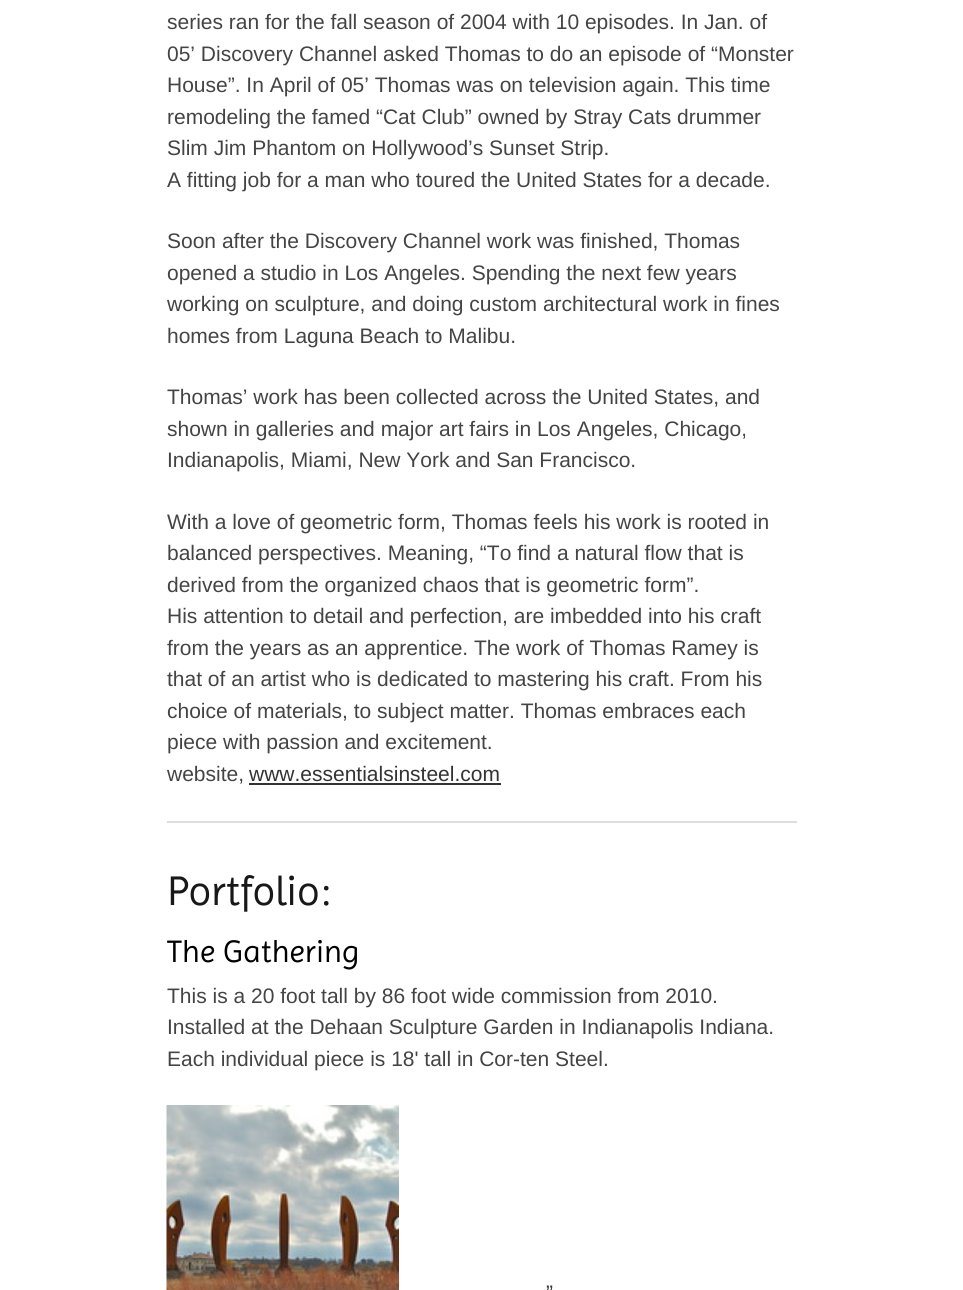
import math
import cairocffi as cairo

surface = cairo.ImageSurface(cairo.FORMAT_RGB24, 963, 1290)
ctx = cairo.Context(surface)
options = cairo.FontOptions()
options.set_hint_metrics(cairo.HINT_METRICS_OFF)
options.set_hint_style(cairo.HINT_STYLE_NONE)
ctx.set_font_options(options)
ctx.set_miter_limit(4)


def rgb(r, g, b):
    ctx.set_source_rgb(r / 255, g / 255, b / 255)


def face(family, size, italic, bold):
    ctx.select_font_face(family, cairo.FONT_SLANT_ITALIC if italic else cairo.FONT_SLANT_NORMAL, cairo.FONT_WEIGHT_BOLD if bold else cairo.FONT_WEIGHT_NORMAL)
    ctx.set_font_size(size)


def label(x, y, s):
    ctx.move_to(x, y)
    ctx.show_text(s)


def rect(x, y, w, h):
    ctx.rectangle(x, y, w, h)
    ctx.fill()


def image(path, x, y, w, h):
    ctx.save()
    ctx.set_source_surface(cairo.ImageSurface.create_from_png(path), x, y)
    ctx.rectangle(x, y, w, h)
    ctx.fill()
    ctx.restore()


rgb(255, 255, 255)
ctx.paint()
face('Liberation Sans', 21, 0, 0)
rgb(68, 68, 68)
label(167, 29, 'series ran for the fall season of 2004 with 10 episodes. In Jan. of')
label(167, 61, '05’ Discovery Channel asked Thomas to do an episode of “Monster')
label(167, 92, 'House”. In April of 05’ Thomas was on television again. This time')
label(167, 124, 'remodeling the famed “Cat Club” owned by Stray Cats drummer')
label(167, 155, 'Slim Jim Phantom on Hollywood’s Sunset Strip.')
label(167, 187, 'A fitting job for a man who toured the United States for a decade.')
label(167, 248, 'Soon after the Discovery Channel work was finished, Thomas')
label(167, 280, 'opened a studio in Los Angeles. Spending the next few years')
label(167, 311, 'working on sculpture, and doing custom architectural work in fines')
label(167, 343, 'homes from Laguna Beach to Malibu.')
label(167, 404, 'Thomas’ work has been collected across the United States, and')
label(167, 436, 'shown in galleries and major art fairs in Los Angeles, Chicago,')
label(167, 467, 'Indianapolis, Miami, New York and San Francisco.')
label(167, 529, 'With a love of geometric form, Thomas feels his work is rooted in')
label(167, 560, 'balanced perspectives. Meaning, “To find a natural flow that is')
label(167, 592, 'derived from the organized chaos that is geometric form”.')
label(167, 623, 'His attention to detail and perfection, are imbedded into his craft')
label(167, 655, 'from the years as an apprentice. The work of Thomas Ramey is')
label(167, 686, 'that of an artist who is dedicated to mastering his craft. From his')
label(167, 718, 'choice of materials, to subject matter. Thomas embraces each')
label(167, 749, 'piece with passion and excitement.')
label(167, 781, 'website,')
rgb(51, 51, 51)
label(249, 781, 'www.essentialsinsteel.com')
rect(249, 783, 252, 2)
rgb(221, 221, 221)
rect(167, 821, 630, 2)
face('Imprima', 42, 0, 0)
rgb(24, 24, 24)
label(167, 905, 'Portfolio:')
face('Imprima', 31.5, 0, 0)
rgb(0, 0, 0)
label(167, 962, 'The Gathering')
face('Liberation Sans', 21, 0, 0)
rgb(68, 68, 68)
label(167, 1003, 'This is a 20 foot tall by 86 foot wide commission from 2010.')
label(167, 1034, 'Installed at the Dehaan Sculpture Garden in Indianapolis Indiana.')
label(167, 1066, 'Each individual piece is 18\' tall in Cor-ten Steel.')
image('image0.png', 166, 1105, 233, 185)
rgb(51, 51, 51)
label(546, 1300, '”')
surface.write_to_png('render.png')
